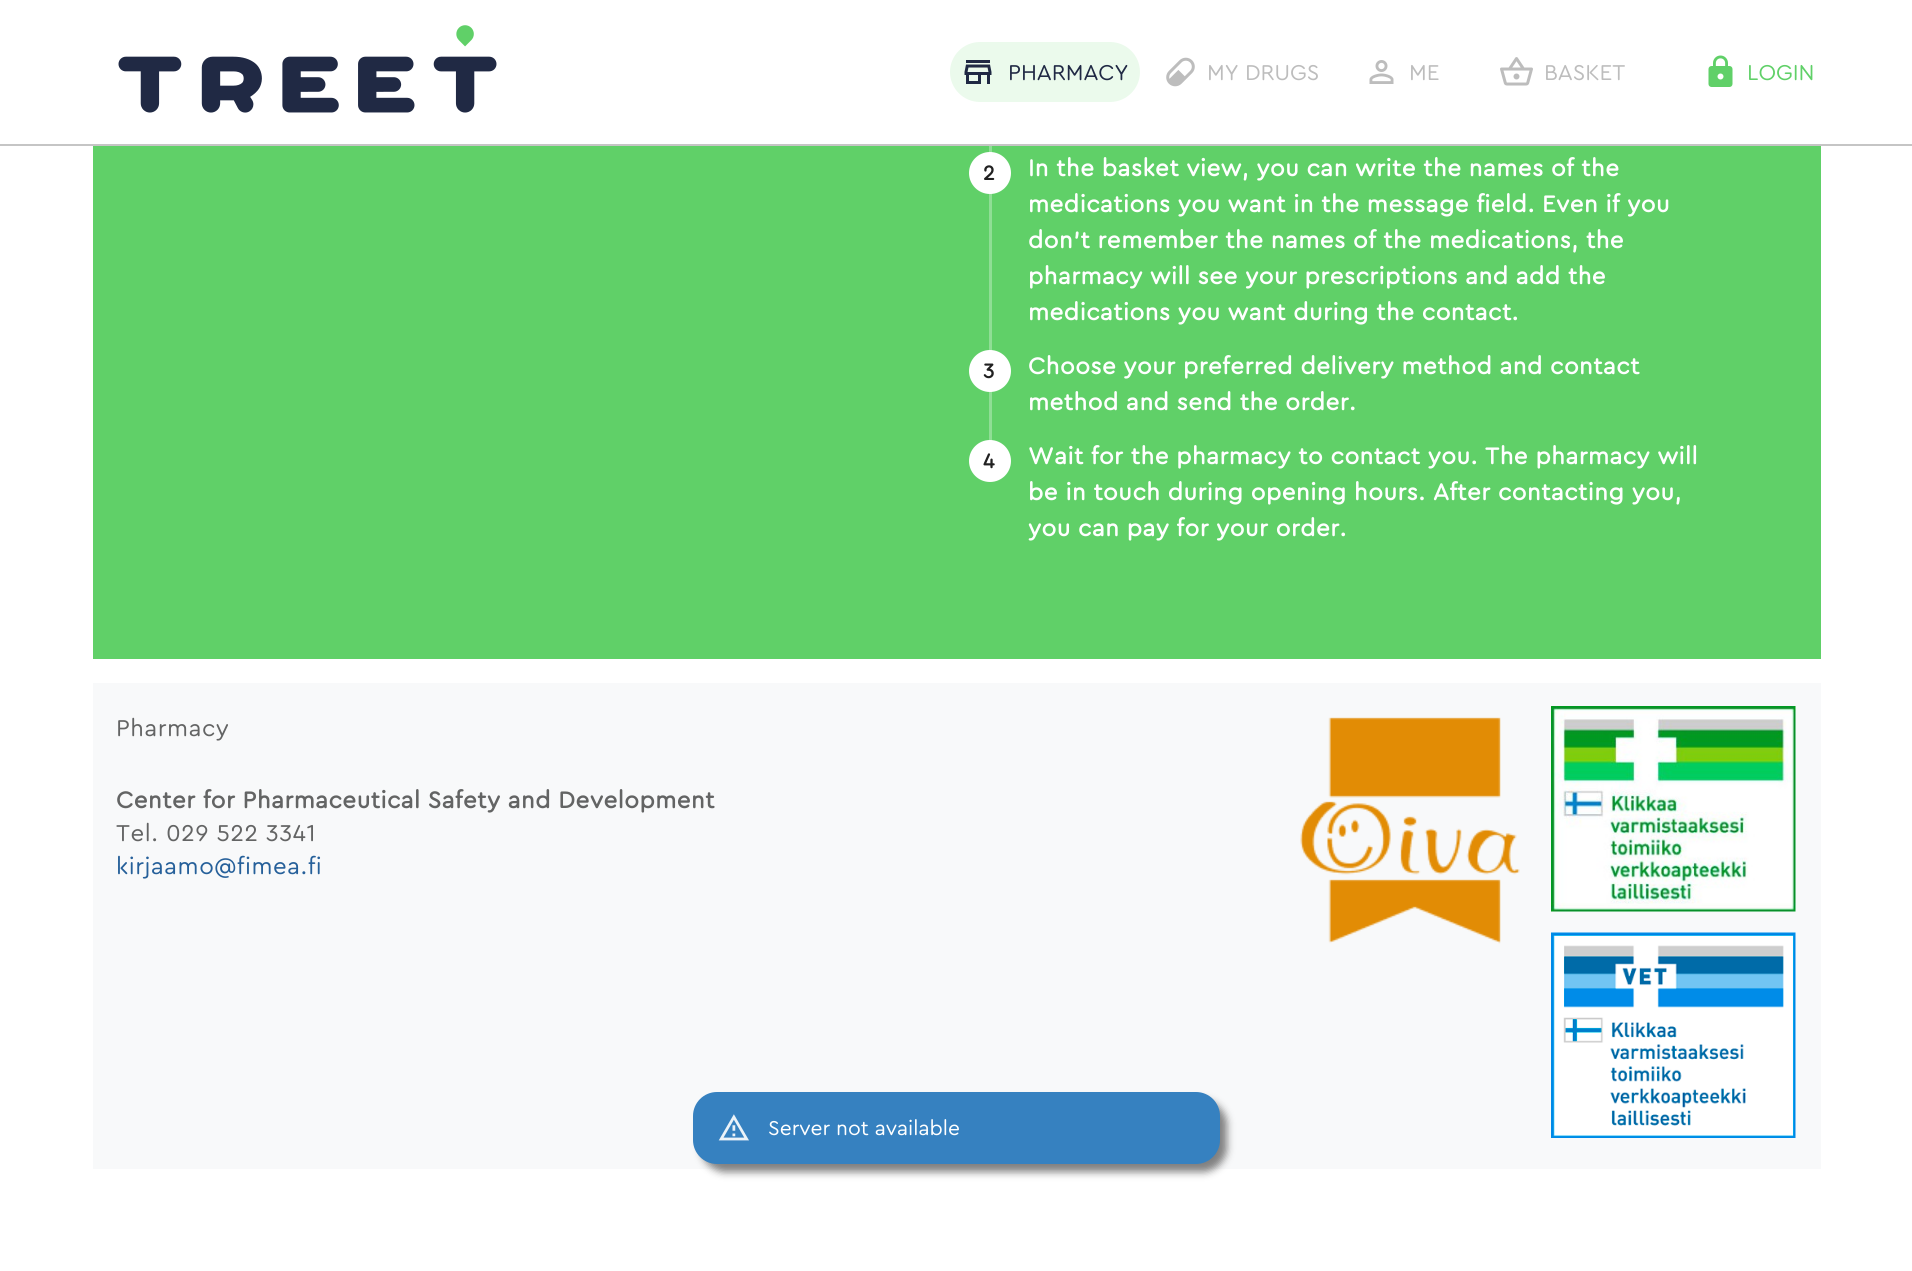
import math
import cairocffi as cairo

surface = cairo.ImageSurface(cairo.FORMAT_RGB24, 1912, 1271)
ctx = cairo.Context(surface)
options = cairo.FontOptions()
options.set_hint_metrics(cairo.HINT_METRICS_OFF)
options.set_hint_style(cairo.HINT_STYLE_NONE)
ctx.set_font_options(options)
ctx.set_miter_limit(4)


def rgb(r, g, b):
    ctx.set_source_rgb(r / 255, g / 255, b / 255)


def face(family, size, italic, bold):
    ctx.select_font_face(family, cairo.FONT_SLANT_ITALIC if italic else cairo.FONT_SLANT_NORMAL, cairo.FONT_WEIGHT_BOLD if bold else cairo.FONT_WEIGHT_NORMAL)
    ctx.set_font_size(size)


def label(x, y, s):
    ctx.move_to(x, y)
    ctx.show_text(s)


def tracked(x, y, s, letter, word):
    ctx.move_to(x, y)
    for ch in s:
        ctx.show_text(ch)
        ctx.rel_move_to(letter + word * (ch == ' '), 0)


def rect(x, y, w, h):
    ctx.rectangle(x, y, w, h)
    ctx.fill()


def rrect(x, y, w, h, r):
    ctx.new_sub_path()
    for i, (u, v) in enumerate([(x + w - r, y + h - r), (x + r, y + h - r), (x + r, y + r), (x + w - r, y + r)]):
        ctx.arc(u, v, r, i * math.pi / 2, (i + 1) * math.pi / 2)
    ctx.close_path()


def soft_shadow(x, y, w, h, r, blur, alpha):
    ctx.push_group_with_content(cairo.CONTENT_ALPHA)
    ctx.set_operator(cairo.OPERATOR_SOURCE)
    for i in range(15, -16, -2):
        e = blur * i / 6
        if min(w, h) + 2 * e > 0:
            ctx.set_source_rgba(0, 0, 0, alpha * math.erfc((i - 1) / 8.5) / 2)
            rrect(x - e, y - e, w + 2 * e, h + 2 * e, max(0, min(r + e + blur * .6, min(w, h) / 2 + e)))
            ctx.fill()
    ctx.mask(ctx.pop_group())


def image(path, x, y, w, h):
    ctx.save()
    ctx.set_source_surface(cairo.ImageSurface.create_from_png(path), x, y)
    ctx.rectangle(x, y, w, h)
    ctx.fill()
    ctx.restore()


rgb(255, 255, 255)
ctx.paint()
image('image0.png', 118, 25, 379, 88)
rgb(235, 250, 236)
rrect(950, 42, 190, 60, 30)
ctx.fill()
image('image1.png', 964, 60, 28, 24)
face('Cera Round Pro', 22.5, 0, 0)
rgb(32, 41, 68)
label(1008, 80, 'PHARMACY')
image('image2.png', 1166, 57, 29, 30)
rgb(189, 189, 189)
label(1207, 80, 'MY DRUGS')
image('image3.png', 1369, 60, 25, 24)
label(1409, 80, 'ME')
image('image4.png', 1500, 57, 33, 29)
label(1544, 80, 'BASKET')
image('image5.png', 1708, 55, 25, 32)
rgb(96, 208, 104)
label(1747, 80, 'LOGIN')
rgb(197, 197, 197)
rect(0, 144, 1912, 2)
rgb(96, 208, 104)
rect(93, 146, 1728, 513)
ctx.set_source_rgba(1, 1, 1, 0.3)
rect(989, 146, 3, 7)
rgb(255, 255, 255)
ctx.new_path()
ctx.arc(990, 173, 21, 0, 2 * math.pi)
ctx.fill()
face('Cera Round Pro', 21, 0, 1)
rgb(33, 33, 33)
tracked(983, 180, '2', 0.6, 0)
face('Cera Round Pro', 24, 0, 1)
rgb(255, 255, 255)
tracked(1028, 176, 'In the basket view, you can write the names of the', 0.6, 0)
ctx.set_source_rgba(1, 1, 1, 0.3)
rect(989, 192, 3, 159)
rgb(255, 255, 255)
tracked(1028, 212, 'medications you want in the message field. Even if you', 0.6, 0)
tracked(1028, 248, 'don\'t remember the names of the medications, the', 0.6, 0)
tracked(1028, 284, 'pharmacy will see your prescriptions and add the', 0.6, 0)
tracked(1028, 320, 'medications you want during the contact.', 0.6, 0)
ctx.new_path()
ctx.arc(990, 371, 21, 0, 2 * math.pi)
ctx.fill()
face('Cera Round Pro', 21, 0, 1)
rgb(33, 33, 33)
tracked(983, 378, '3', 0.6, 0)
face('Cera Round Pro', 24, 0, 1)
rgb(255, 255, 255)
tracked(1028, 374, 'Choose your preferred delivery method and contact', 0.6, 0)
ctx.set_source_rgba(1, 1, 1, 0.3)
rect(989, 390, 3, 51)
rgb(255, 255, 255)
tracked(1028, 410, 'method and send the order.', 0.6, 0)
ctx.new_path()
ctx.arc(990, 461, 21, 0, 2 * math.pi)
ctx.fill()
face('Cera Round Pro', 21, 0, 1)
rgb(33, 33, 33)
tracked(983, 468, '4', 0.6, 0)
face('Cera Round Pro', 24, 0, 1)
rgb(255, 255, 255)
tracked(1028, 464, 'Wait for the pharmacy to contact you. The pharmacy will', 0.6, 0)
tracked(1028, 500, 'be in touch during opening hours. After contacting you,', 0.6, 0)
tracked(1028, 536, 'you can pay for your order.', 0.6, 0)
rgb(248, 249, 250)
rect(93, 683, 1728, 486)
face('Cera Round Pro', 24, 0, 0)
rgb(99, 100, 100)
tracked(116, 736, 'Pharmacy', 0.6, 0)
face('Cera Round Pro', 24, 0, 1)
tracked(116, 808, 'Center for Pharmaceutical Safety and Development', 0.6, 0)
face('Cera Round Pro', 24, 0, 0)
tracked(116, 841, 'Tel. 029 522 3341', 0.6, 0)
rgb(38, 96, 154)
tracked(116, 874, 'kirjaamo@fimea.fi', 0.6, 0)
image('image6.png', 1300, 717, 220, 227)
image('image7.png', 1551, 706, 245, 206)
image('image8.png', 1551, 932, 245, 206)
rgb(128, 128, 128)
soft_shadow(701, 1100, 526, 72, 24, 4, 1)
rgb(54, 129, 192)
rrect(693, 1092, 527, 72, 24)
ctx.fill()
image('image9.png', 718, 1114, 31, 27)
face('Cera Round Pro', 21, 0, 0)
rgb(255, 255, 255)
label(768, 1135, 'Server not available')
surface.write_to_png('render.png')
